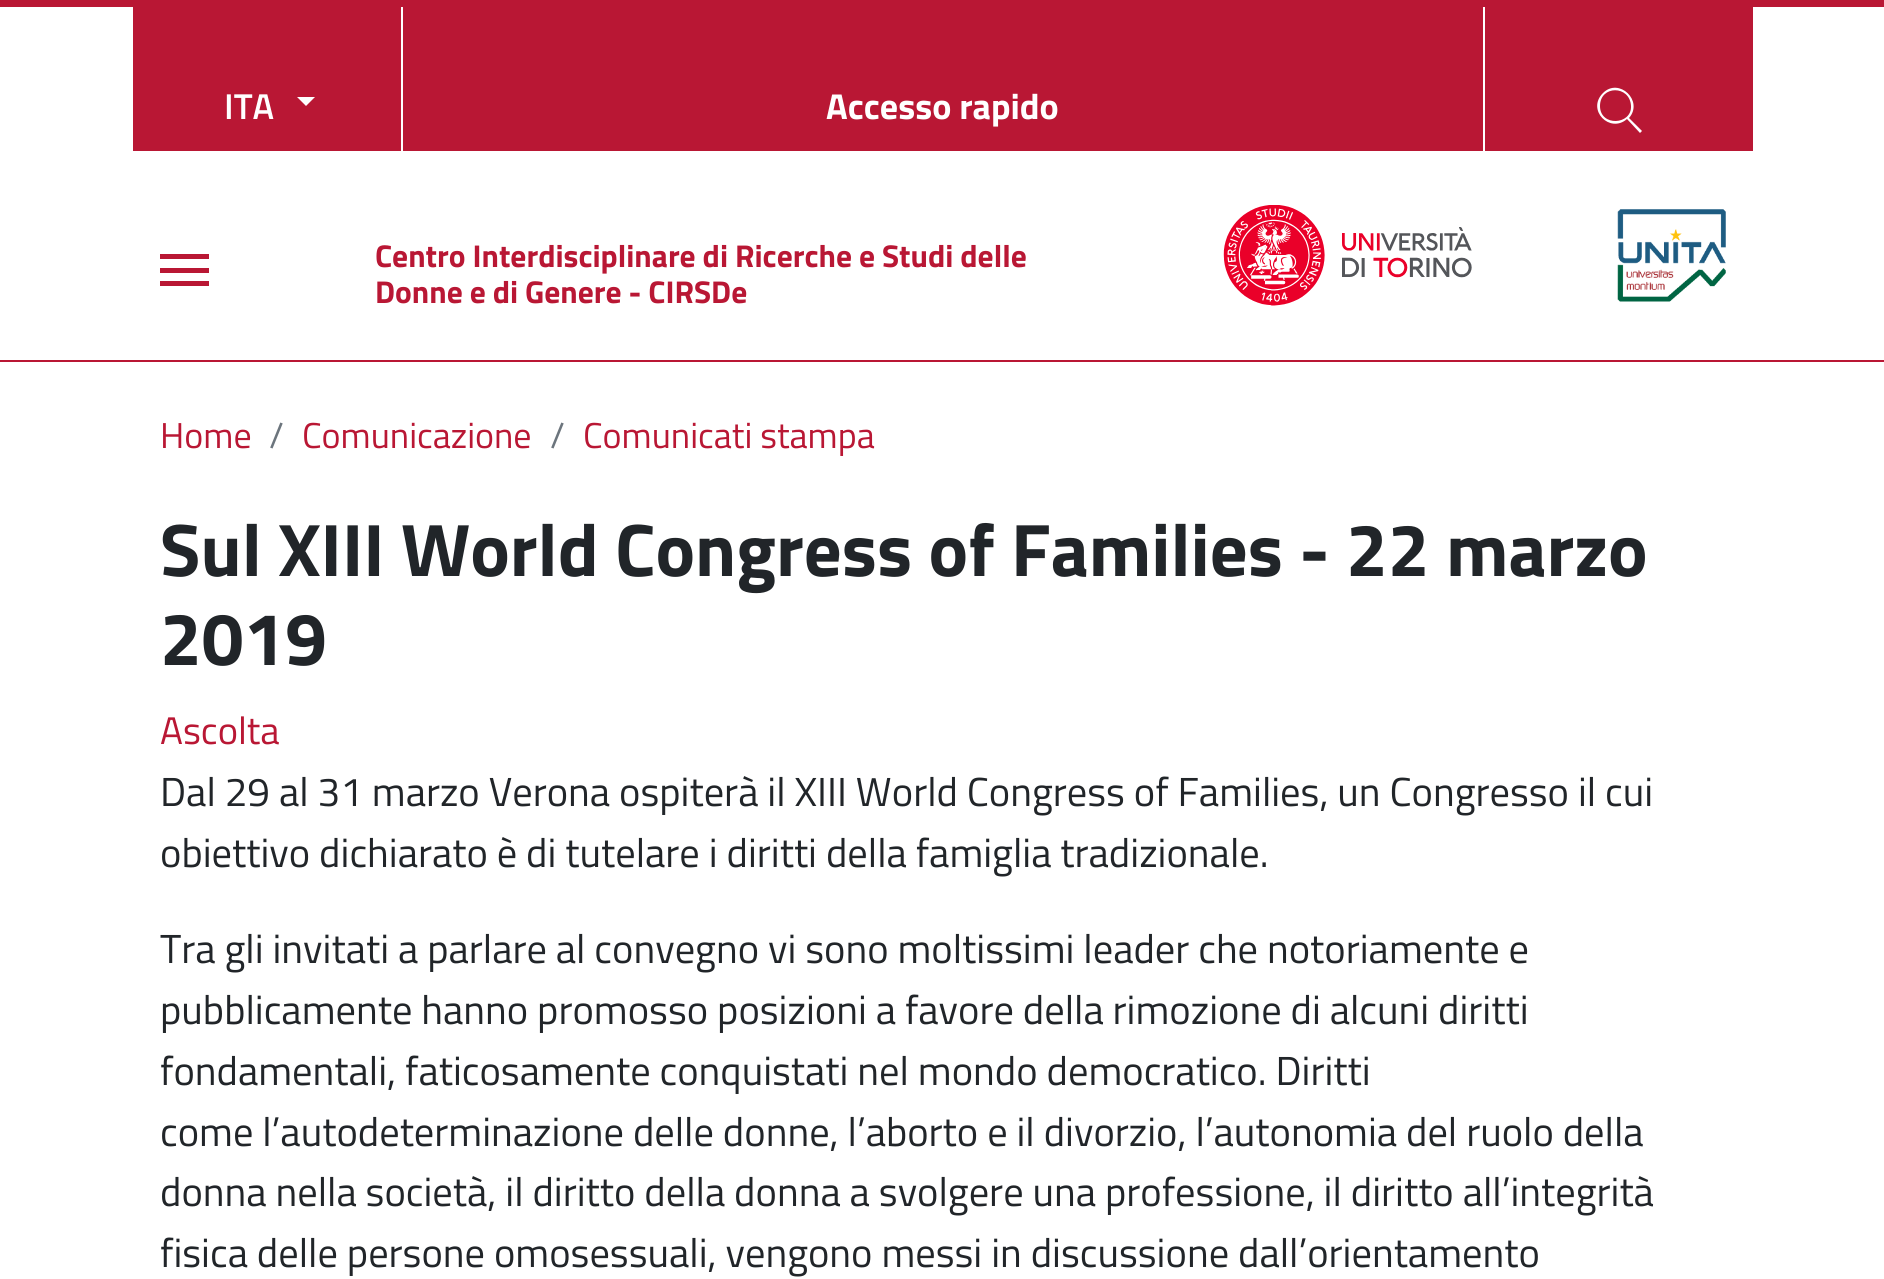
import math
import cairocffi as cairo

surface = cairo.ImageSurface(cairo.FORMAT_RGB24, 1884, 1279)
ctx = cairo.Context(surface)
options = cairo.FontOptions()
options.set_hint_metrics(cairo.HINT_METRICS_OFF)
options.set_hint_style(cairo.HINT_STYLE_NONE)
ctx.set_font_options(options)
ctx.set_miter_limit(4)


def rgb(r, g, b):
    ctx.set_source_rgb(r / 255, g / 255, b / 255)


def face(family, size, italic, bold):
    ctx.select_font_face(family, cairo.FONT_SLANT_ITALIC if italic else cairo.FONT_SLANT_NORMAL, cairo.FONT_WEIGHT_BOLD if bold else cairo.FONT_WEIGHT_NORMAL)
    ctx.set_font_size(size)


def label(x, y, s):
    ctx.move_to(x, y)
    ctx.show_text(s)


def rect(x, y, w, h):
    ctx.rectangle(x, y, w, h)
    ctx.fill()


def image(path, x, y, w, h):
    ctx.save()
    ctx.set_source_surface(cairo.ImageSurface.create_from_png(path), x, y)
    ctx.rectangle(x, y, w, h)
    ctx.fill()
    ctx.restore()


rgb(255, 255, 255)
ctx.paint()
rgb(185, 23, 52)
rect(0, 0, 1884, 7)
rect(133, 7, 1620, 144)
rgb(255, 255, 255)
rect(401, 7, 2, 144)
face('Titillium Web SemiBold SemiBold', 36, 0, 0)
label(224, 119, 'ITA')
ctx.new_path()
ctx.move_to(297, 97)
ctx.line_to(315, 97)
ctx.line_to(306, 106)
ctx.close_path()
ctx.fill()
face('Titillium Web', 36, 0, 1)
label(826, 119, 'Accesso rapido')
rect(1483, 7, 2, 144)
ctx.set_fill_rule(cairo.FILL_RULE_EVEN_ODD)
ctx.new_path()
ctx.move_to(1629, 118)
ctx.line_to(1642, 131)
ctx.line_to(1640, 133)
ctx.line_to(1627, 119)
ctx.curve_to(1610, 134, 1586, 110, 1603, 93)
ctx.curve_to(1619, 77, 1644, 101, 1629, 118)
ctx.close_path()
ctx.move_to(1600, 106)
ctx.curve_to(1600, 127, 1632, 125, 1631, 106)
ctx.curve_to(1630, 85, 1600, 85, 1600, 106)
ctx.close_path()
ctx.fill()
rgb(185, 23, 52)
rect(0, 360, 1884, 2)
rect(160, 268, 49, 5)
rect(160, 254, 49, 5)
rect(160, 281, 49, 5)
face('Titillium Web', 31.5, 0, 1)
label(375, 267, 'Centro Interdisciplinare di Ricerche e Studi delle')
label(375, 303, 'Donne e di Genere - CIRSDe')
image('image0.png', 1223, 205, 249, 101)
image('image1.png', 1617, 209, 109, 93)
face('Titillium Web', 36, 0, 0)
label(160, 448, 'Home')
rgb(108, 117, 125)
label(269, 448, '/')
rgb(185, 23, 52)
label(302, 448, 'Comunicazione')
rgb(108, 117, 125)
label(550, 448, '/')
rgb(185, 23, 52)
label(583, 448, 'Comunicati stampa')
face('Titillium Web', 74.5, 0, 1)
rgb(33, 37, 41)
label(160, 576, 'Sul XIII World Congress of Families - 22 marzo')
label(160, 665, '2019')
face('Titillium Web', 38.5, 0, 0)
rgb(185, 23, 52)
label(160, 744, 'Ascolta')
face('Titillium Web', 40.5, 0, 0)
rgb(33, 37, 41)
label(160, 806, 'Dal 29 al 31 marzo Verona ospiterà il XIII World Congress of Families, un Congresso il cui')
label(160, 867, 'obiettivo dichiarato è di tutelare i diritti della famiglia tradizionale.')
label(160, 963, 'Tra gli invitati a parlare al convegno vi sono moltissimi leader che notoriamente e')
label(160, 1024, 'pubblicamente hanno promosso posizioni a favore della rimozione di alcuni diritti')
label(160, 1085, 'fondamentali, faticosamente conquistati nel mondo democratico. Diritti')
label(160, 1146, 'come l’autodeterminazione delle donne, l’aborto e il divorzio, l’autonomia del ruolo della')
label(160, 1206, 'donna nella società, il diritto della donna a svolgere una professione, il diritto all’integrità')
label(160, 1267, 'fisica delle persone omosessuali, vengono messi in discussione dall’orientamento')
surface.write_to_png('render.png')
